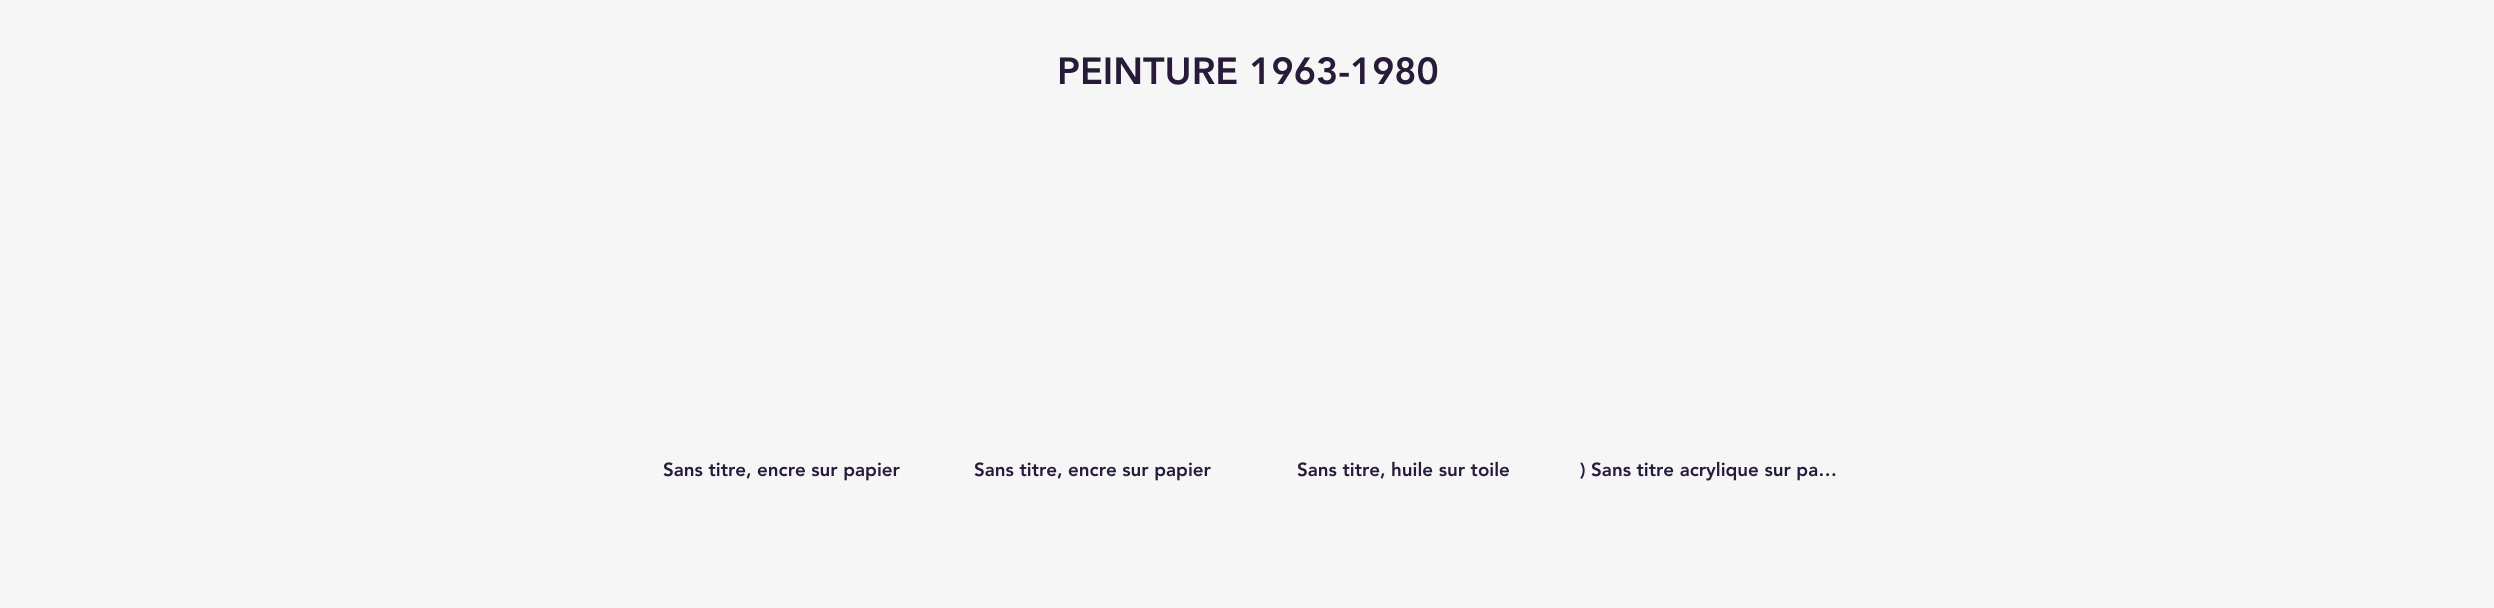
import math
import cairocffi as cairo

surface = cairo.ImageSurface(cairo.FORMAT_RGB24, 2494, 608)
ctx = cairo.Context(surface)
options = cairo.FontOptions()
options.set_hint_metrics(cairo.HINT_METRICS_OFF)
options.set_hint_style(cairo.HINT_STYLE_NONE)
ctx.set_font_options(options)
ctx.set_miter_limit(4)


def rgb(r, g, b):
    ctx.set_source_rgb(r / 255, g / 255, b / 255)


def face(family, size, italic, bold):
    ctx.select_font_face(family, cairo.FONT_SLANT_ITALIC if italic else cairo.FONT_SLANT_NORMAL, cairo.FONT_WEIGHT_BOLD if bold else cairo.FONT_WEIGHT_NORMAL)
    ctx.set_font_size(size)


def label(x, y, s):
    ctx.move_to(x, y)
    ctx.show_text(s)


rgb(246, 246, 246)
ctx.paint()
face('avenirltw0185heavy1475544 Black', 37.5, 0, 0)
rgb(40, 26, 57)
label(1057, 84, 'PEINTURE 1963-1980')
face('avenirltw0185heavy1475544 Black', 18.75, 0, 0)
label(663, 476, 'Sans titre, encre sur papier')
label(974, 476, 'Sans titre, encre sur papier')
label(1297, 476, 'Sans titre, huile sur toile')
label(1580, 476, ') Sans titre acrylique sur pa…')
surface.write_to_png('render.png')
